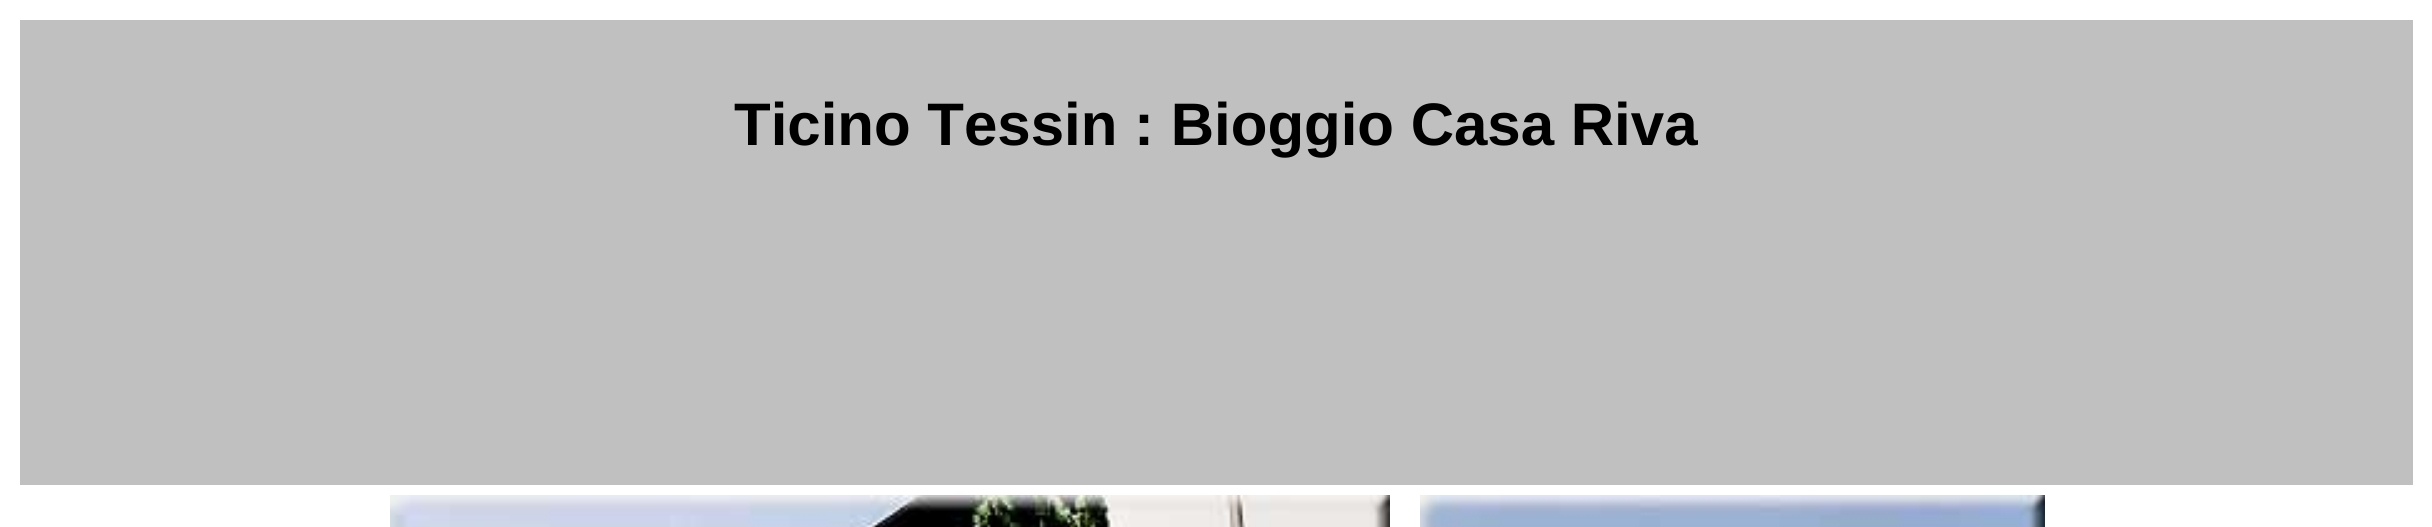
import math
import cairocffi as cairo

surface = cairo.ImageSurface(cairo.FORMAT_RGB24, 2432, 527)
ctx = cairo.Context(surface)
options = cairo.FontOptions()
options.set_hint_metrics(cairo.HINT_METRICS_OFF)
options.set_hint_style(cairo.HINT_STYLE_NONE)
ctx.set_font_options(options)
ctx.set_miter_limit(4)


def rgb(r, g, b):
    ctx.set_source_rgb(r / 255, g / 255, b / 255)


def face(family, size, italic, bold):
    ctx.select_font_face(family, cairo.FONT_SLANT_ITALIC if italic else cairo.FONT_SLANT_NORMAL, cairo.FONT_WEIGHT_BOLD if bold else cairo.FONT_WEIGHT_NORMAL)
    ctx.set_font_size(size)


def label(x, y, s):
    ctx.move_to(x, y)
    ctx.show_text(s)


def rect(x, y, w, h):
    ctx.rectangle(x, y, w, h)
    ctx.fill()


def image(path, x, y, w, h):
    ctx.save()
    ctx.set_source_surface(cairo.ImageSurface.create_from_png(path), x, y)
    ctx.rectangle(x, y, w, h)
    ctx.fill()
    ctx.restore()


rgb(255, 255, 255)
ctx.paint()
rgb(192, 192, 192)
rect(20, 20, 2393, 465)
face('Liberation Sans', 60, 0, 1)
rgb(0, 0, 0)
label(734, 145, 'Ticino Tessin : Bioggio Casa Riva')
image('image0.png', 390, 495, 1000, 32)
image('image1.png', 1420, 495, 625, 32)
surface.write_to_png('render.png')
